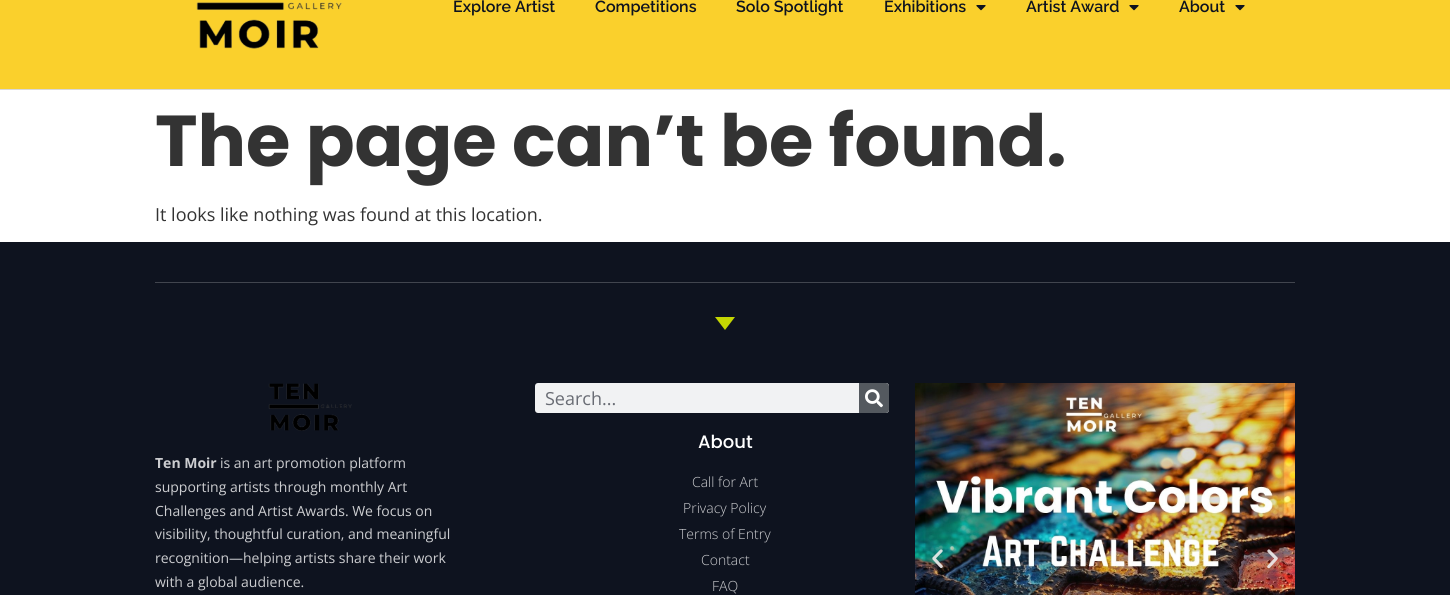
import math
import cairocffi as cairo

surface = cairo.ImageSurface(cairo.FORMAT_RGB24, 1450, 595)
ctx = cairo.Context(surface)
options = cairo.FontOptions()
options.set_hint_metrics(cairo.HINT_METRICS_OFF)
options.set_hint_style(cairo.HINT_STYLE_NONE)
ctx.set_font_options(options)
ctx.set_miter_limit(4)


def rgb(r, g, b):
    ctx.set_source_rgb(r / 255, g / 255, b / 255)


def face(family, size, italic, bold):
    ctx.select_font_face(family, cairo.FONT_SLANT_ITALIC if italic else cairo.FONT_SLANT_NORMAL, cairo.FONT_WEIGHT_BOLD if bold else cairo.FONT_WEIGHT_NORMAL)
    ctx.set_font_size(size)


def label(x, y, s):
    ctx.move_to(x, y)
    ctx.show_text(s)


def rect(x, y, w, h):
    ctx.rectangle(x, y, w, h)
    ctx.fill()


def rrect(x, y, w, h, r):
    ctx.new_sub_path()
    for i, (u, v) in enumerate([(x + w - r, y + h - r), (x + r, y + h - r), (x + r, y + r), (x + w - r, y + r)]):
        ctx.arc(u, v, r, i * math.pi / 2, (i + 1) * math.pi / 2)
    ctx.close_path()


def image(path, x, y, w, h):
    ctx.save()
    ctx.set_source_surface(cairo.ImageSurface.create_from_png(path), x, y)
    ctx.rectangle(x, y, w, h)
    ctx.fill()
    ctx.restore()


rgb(255, 255, 255)
ctx.paint()
rgb(250, 208, 44)
rect(0, 0, 1450, 89)
rgb(216, 216, 216)
rect(0, 89, 1450, 1)
image('image0.png', 196, 2, 146, 47)
face('Raleway SemiBold', 16, 0, 0)
rgb(14, 19, 31)
label(453, 12, 'Explore Artist')
label(595, 12, 'Competitions')
label(736, 12, 'Solo Spotlight')
label(884, 12, 'Exhibitions')
image('image1.png', 976, 5, 10, 6)
label(1026, 12, 'Artist Award')
image('image1.png', 1129, 5, 10, 6)
label(1179, 12, 'About')
image('image1.png', 1235, 5, 10, 6)
face('Poppins', 72, 0, 1)
rgb(51, 51, 51)
label(155, 166, 'The page can’t be found.')
face('Open Sans', 18, 0, 0)
label(155, 221, 'It looks like nothing was found at this location.')
rgb(14, 19, 31)
rect(0, 242, 1450, 353)
rgb(65, 69, 78)
rect(155, 282, 1140, 1)
rgb(196, 214, 2)
ctx.new_path()
ctx.move_to(725, 330)
ctx.line_to(715, 317)
ctx.line_to(735, 317)
ctx.close_path()
ctx.fill()
image('image2.png', 268, 383, 84, 48)
face('Open Sans', 14, 0, 1)
rgb(204, 205, 208)
label(155, 468, 'Ten Moir')
face('Open Sans', 14, 0, 0)
label(220, 468, 'is an art promotion platform')
label(155, 492, 'supporting artists through monthly Art')
label(155, 516, 'Challenges and Artist Awards. We focus on')
label(155, 539, 'visibility, thoughtful curation, and meaningful')
label(155, 563, 'recognition—helping artists share their work')
label(155, 587, 'with a global audience.')
rgb(241, 242, 243)
rrect(535, 383, 354, 30, 3)
ctx.fill()
face('Open Sans', 18, 0, 0)
rgb(105, 108, 116)
label(545, 405, 'Search...')
rgb(84, 89, 95)
ctx.new_path()
ctx.move_to(859, 383)
ctx.line_to(886, 383)
ctx.curve_to(887.5, 383, 889, 384.5, 889, 386)
ctx.line_to(889, 410)
ctx.curve_to(889, 411.5, 887.5, 413, 886, 413)
ctx.line_to(859, 413)
ctx.close_path()
ctx.fill()
image('image3.png', 865, 389, 18, 19)
face('Poppins Medium', 18, 0, 0)
rgb(255, 255, 255)
label(698, 448, 'About')
face('Open Sans Light', 14, 0, 0)
rgb(204, 205, 208)
label(692, 487, 'Call for Art')
label(683, 513, 'Privacy Policy')
label(679, 539, 'Terms of Entry')
label(701, 565, 'Contact')
label(712, 591, 'FAQ')
image('image4.png', 915, 383, 380, 212)
image('image5.png', 932, 549, 11, 20)
image('image6.png', 1267, 549, 11, 20)
surface.write_to_png('render.png')
